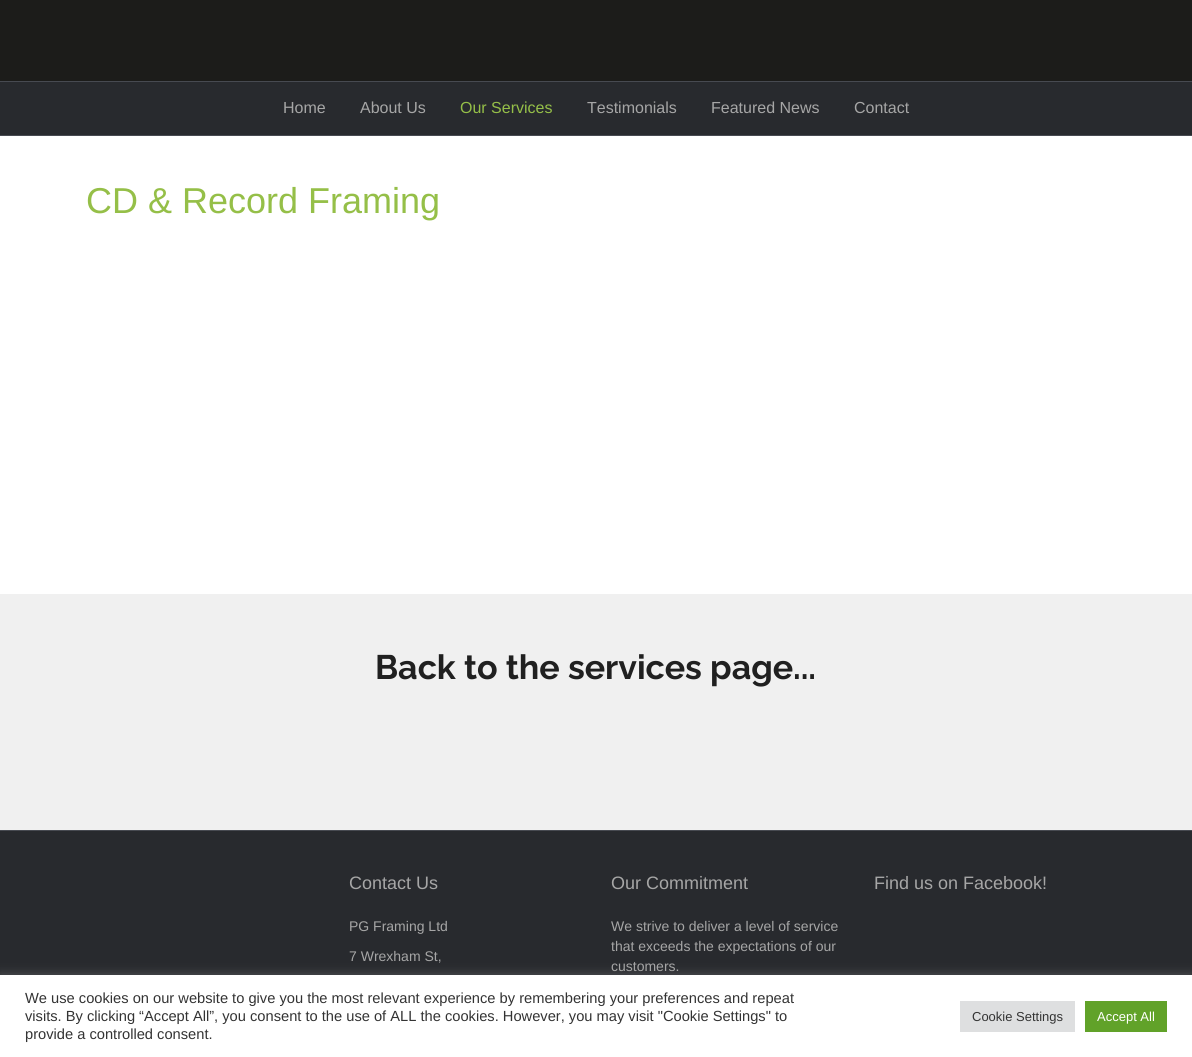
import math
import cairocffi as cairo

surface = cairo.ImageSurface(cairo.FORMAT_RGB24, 1192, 1057)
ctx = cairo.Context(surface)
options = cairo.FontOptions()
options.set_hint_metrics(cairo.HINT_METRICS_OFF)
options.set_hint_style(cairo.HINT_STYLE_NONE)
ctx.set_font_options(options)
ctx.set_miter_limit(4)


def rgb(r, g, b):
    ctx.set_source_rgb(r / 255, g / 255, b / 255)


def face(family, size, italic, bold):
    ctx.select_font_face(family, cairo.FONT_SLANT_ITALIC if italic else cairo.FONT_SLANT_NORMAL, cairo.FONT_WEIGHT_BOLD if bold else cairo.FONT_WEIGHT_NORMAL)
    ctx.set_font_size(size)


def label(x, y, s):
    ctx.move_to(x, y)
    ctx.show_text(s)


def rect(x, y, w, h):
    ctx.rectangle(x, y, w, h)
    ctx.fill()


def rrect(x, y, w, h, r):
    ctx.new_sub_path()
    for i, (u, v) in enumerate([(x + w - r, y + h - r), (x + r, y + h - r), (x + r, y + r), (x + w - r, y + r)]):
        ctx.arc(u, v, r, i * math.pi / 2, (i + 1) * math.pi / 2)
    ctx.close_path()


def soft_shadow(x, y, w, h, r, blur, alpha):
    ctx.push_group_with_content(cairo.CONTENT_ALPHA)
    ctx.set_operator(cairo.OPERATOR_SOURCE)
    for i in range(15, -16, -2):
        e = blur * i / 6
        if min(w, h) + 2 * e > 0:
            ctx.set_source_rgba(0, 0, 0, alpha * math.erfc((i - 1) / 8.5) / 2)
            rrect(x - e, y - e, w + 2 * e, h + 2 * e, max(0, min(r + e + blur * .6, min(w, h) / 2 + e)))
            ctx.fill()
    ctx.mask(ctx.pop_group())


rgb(40, 42, 46)
ctx.paint()
rgb(28, 28, 26)
rect(0, 0, 1192, 81)
rgb(71, 74, 81)
rect(0, 81, 1192, 1)
rect(0, 135, 1192, 1)
face('Liberation Sans', 16, 0, 0)
rgb(166, 166, 166)
label(283, 113, 'Home')
label(360, 113, 'About Us')
rgb(149, 191, 72)
label(460, 113, 'Our Services')
rgb(166, 166, 166)
label(587, 113, 'Testimonials')
label(711, 113, 'Featured News')
label(854, 113, 'Contact')
rgb(255, 255, 255)
rect(0, 136, 1192, 458)
face('Liberation Sans', 36, 0, 0)
rgb(149, 191, 72)
label(86, 213, 'CD & Record Framing')
rgb(240, 240, 240)
rect(0, 594, 1192, 236)
face('Raleway Thin', 34, 0, 0)
rgb(32, 32, 32)
label(375, 679, 'Back to the services page...')
rgb(71, 74, 81)
rect(0, 830, 1192, 1)
face('Liberation Sans', 18, 0, 0)
rgb(166, 166, 166)
label(349, 889, 'Contact Us')
face('Liberation Sans', 14, 0, 0)
label(349, 931, 'PG Framing Ltd')
label(349, 961, '7 Wrexham St,')
face('Liberation Sans', 18, 0, 0)
label(611, 889, 'Our Commitment')
face('Liberation Sans', 14, 0, 0)
label(611, 931, 'We strive to deliver a level of service')
label(611, 951, 'that exceeds the expectations of our')
label(611, 971, 'customers.')
face('Liberation Sans', 18, 0, 0)
label(874, 889, 'Find us on Facebook!')
rgb(172, 171, 171)
soft_shadow(0, 974, 1192, 82, 0, 5, 0.3)
rgb(255, 255, 255)
rect(0, 975, 1192, 82)
face('Liberation Sans', 14.67, 0, 0)
rgb(51, 51, 51)
label(25, 1003, 'We use cookies on our website to give you the most relevant experience by remembering your preferences and repeat')
label(25, 1021, 'visits. By clicking “Accept All”, you consent to the use of ALL the cookies. However, you may visit "Cookie Settings" to')
label(25, 1039, 'provide a controlled consent.')
rgb(222, 223, 224)
rect(960, 1001, 115, 31)
face('Liberation Sans', 13, 0, 0)
rgb(51, 51, 51)
label(972, 1021, 'Cookie Settings')
rgb(97, 162, 41)
rect(1085, 1001, 82, 31)
rgb(255, 255, 255)
label(1097, 1021, 'Accept All')
surface.write_to_png('render.png')
